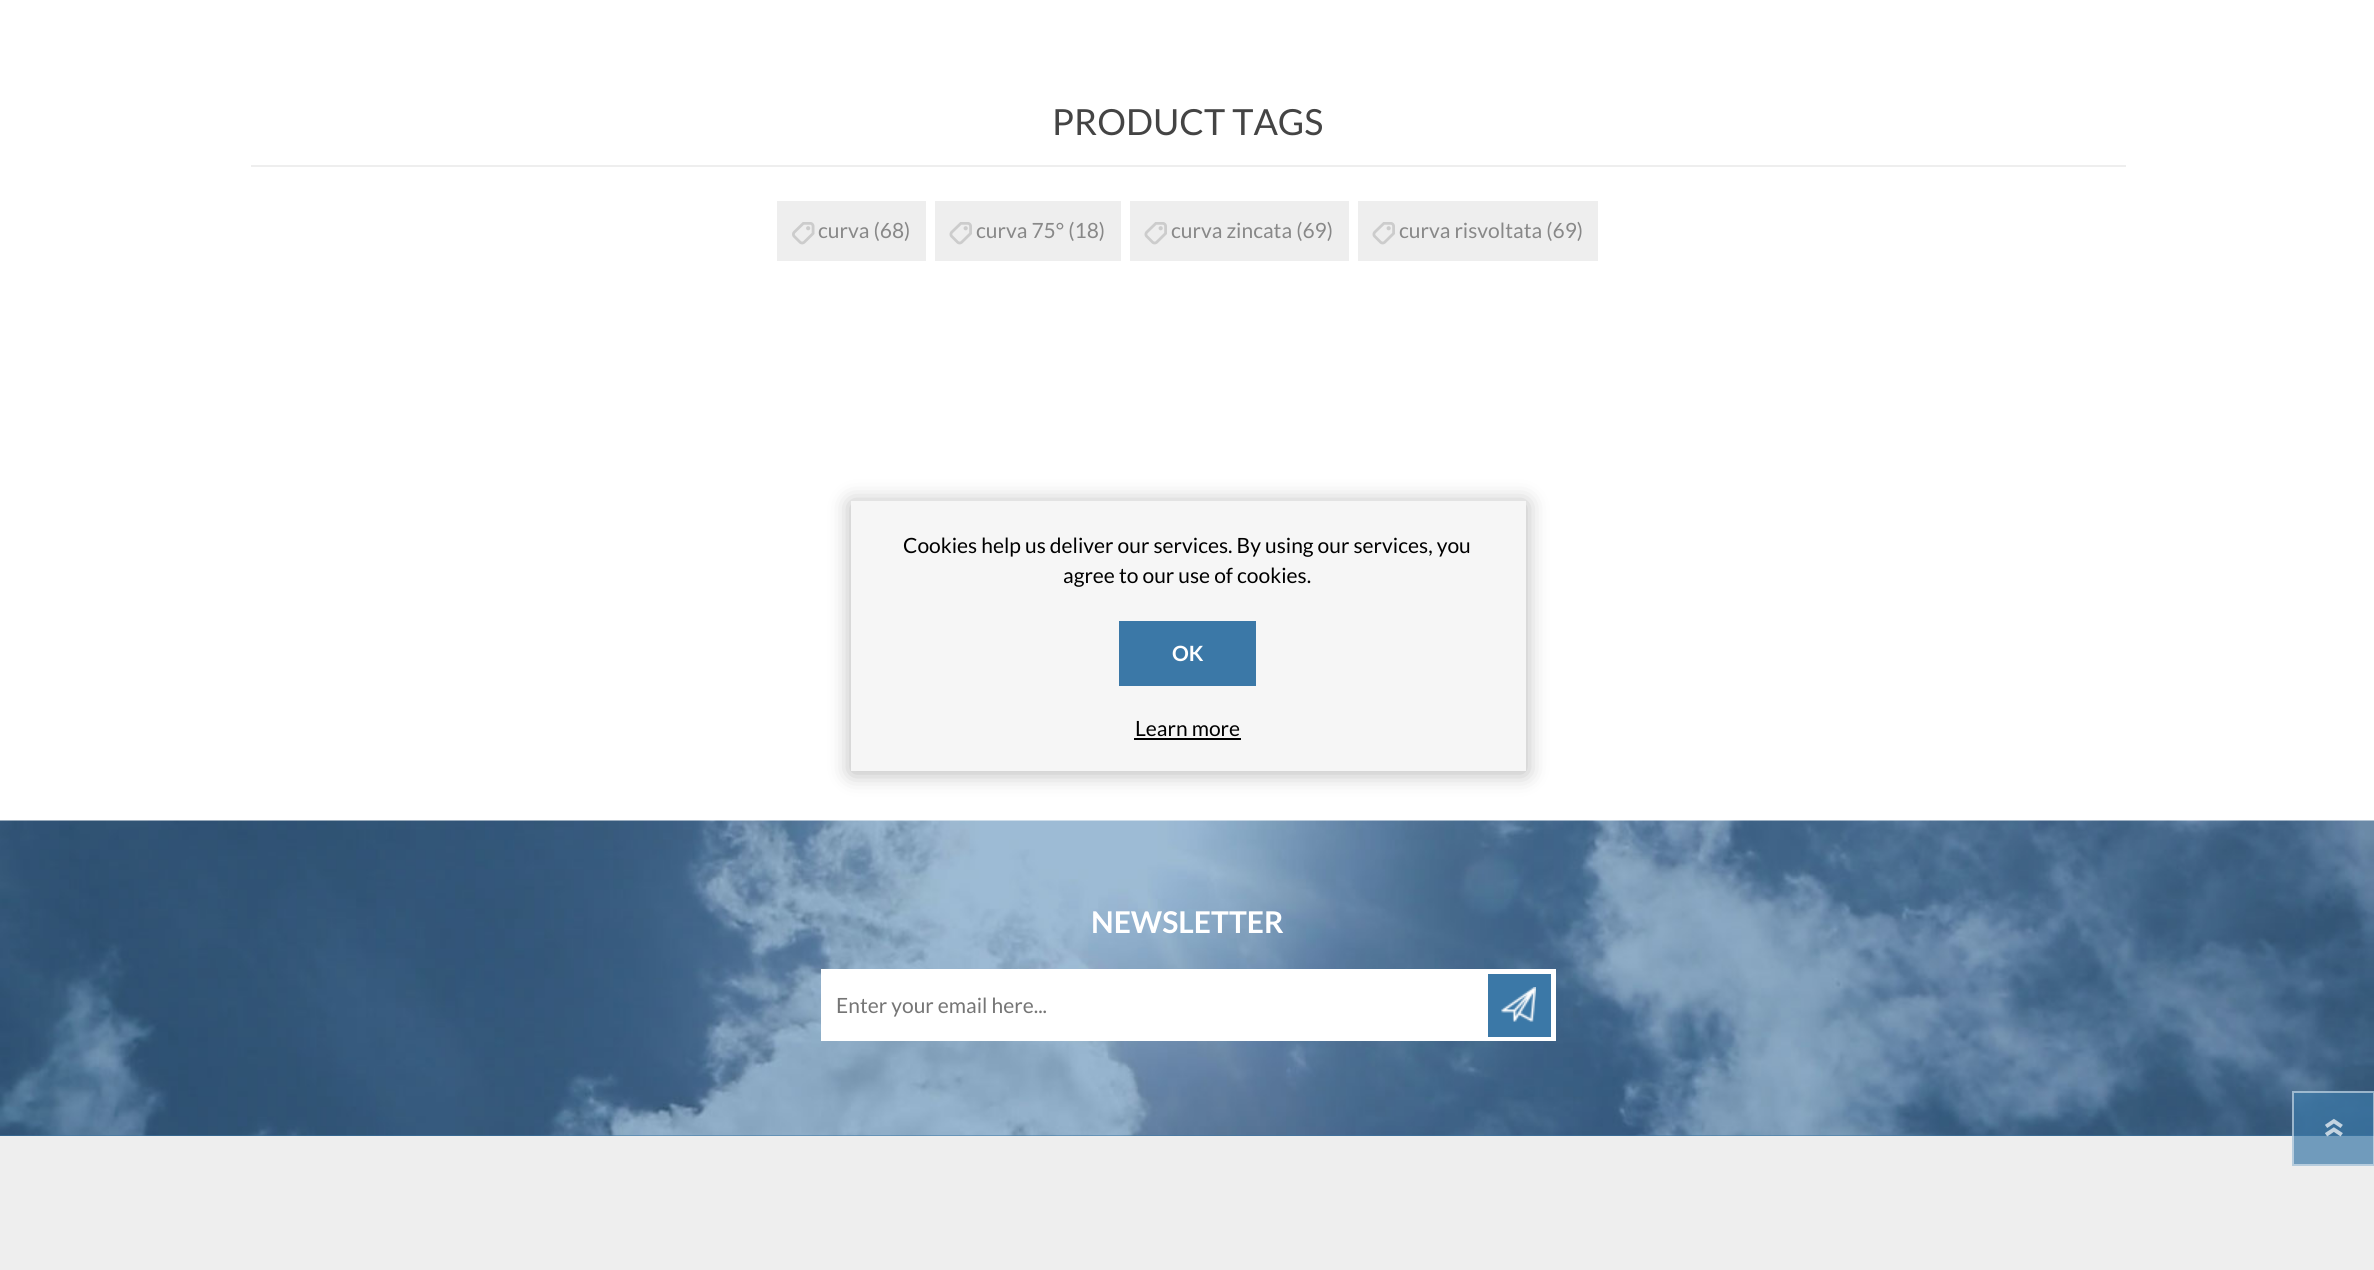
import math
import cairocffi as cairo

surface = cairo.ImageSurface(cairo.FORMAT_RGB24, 2374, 1270)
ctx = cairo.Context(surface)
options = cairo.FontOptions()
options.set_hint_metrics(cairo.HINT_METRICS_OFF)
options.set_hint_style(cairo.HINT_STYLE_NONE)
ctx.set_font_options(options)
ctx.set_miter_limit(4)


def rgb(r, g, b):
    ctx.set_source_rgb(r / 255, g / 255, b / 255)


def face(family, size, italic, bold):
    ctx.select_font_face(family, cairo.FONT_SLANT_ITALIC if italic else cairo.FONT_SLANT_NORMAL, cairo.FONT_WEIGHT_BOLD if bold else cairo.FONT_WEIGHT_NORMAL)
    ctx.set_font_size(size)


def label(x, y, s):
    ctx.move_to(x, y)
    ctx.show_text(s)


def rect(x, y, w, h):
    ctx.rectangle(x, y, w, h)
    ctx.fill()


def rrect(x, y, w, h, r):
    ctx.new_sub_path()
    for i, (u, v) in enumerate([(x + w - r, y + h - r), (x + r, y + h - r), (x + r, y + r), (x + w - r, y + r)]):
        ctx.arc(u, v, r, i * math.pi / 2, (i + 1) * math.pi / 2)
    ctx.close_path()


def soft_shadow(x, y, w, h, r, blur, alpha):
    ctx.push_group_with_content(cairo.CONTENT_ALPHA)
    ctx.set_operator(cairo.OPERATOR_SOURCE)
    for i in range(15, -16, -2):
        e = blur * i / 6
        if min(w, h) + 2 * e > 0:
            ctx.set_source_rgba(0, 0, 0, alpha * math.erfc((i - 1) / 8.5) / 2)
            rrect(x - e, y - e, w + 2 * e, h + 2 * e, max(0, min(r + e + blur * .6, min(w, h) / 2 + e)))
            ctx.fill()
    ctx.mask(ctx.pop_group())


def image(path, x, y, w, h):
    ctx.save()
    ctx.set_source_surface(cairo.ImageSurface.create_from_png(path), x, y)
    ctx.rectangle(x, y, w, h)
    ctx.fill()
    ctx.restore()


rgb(255, 255, 255)
ctx.paint()
rgb(238, 238, 238)
rect(251, 165, 1875, 2)
face('Lato', 36, 0, 0)
rgb(68, 68, 68)
label(1052, 135, 'PRODUCT TAGS')
rgb(238, 238, 238)
rect(777, 201, 149, 60)
image('image0.png', 792, 222, 23, 23)
face('Lato', 21, 0, 0)
rgb(136, 136, 136)
label(818, 238, 'curva (68)')
rgb(238, 238, 238)
rect(935, 201, 186, 60)
image('image1.png', 949, 222, 23, 23)
rgb(136, 136, 136)
label(976, 238, 'curva 75° (18)')
rgb(238, 238, 238)
rect(1130, 201, 219, 60)
image('image1.png', 1144, 222, 23, 23)
rgb(136, 136, 136)
label(1171, 238, 'curva zincata (69)')
rgb(238, 238, 238)
rect(1358, 201, 240, 60)
image('image1.png', 1372, 222, 23, 23)
rgb(136, 136, 136)
label(1399, 238, 'curva risvoltata (69)')
rgb(238, 238, 238)
rect(0, 1136, 2374, 134)
rgb(59, 120, 167)
rect(0, 1135, 2374, 1)
image('image2.png', 0, 820, 2374, 316)
face('Lato', 30, 0, 1)
rgb(255, 255, 255)
label(1091, 933, 'NEWSLETTER')
rect(821, 969, 735, 72)
face('Lato', 21, 0, 0)
rgb(117, 117, 117)
label(836, 1013, 'Enter your email here...')
rgb(59, 120, 167)
rect(1488, 974, 63, 63)
image('image3.png', 1501, 987, 35, 35)
rgb(0, 0, 0)
soft_shadow(851, 503, 675, 270, 0, 11, 0.3)
rgb(246, 246, 246)
rect(851, 501, 675, 270)
rgb(0, 0, 0)
label(903, 553, 'Cookies help us deliver our services. By using our services, you')
label(1063, 583, 'agree to our use of cookies.')
rgb(59, 120, 167)
rect(1119, 621, 137, 65)
face('Lato', 21, 0, 1)
rgb(255, 255, 255)
label(1172, 661, 'OK')
face('Lato', 21, 0, 0)
rgb(0, 0, 0)
label(1135, 736, 'Learn more')
rect(1134, 738, 107, 2)
ctx.set_source_rgba(0.231, 0.471, 0.655, 0.7)
rect(2292, 1091, 82, 75)
ctx.rectangle(2293, 1092, 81, 73)
ctx.set_source_rgba(1, 1, 1, 0.49)
ctx.stroke()
image('image4.png', 2325, 1118, 18, 19)
surface.write_to_png('render.png')
